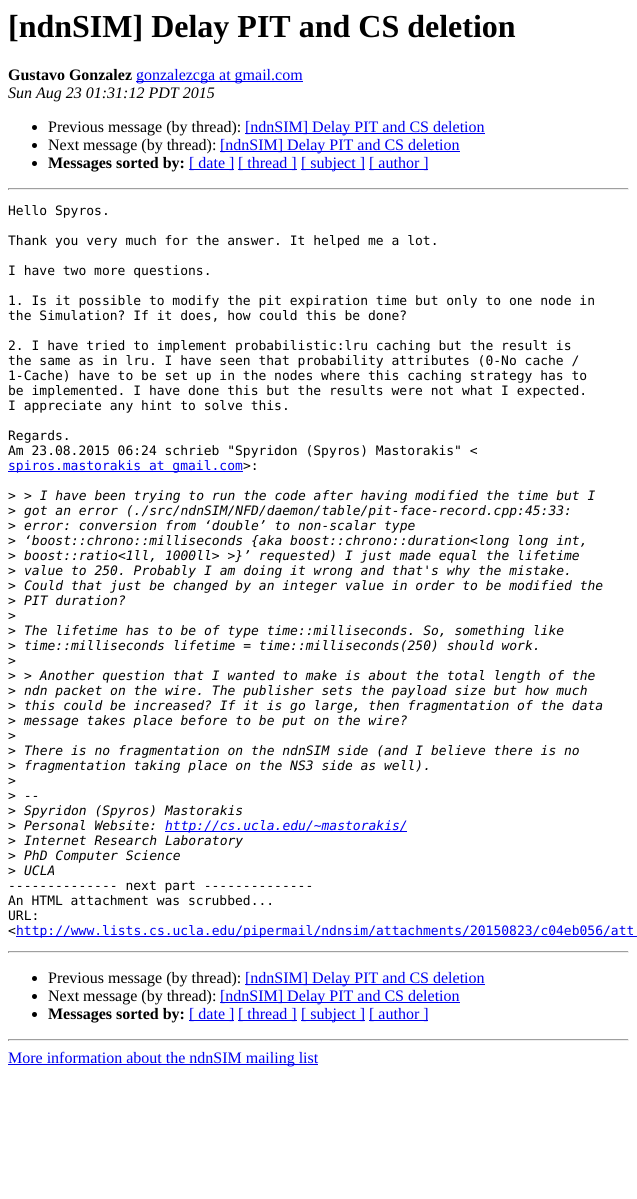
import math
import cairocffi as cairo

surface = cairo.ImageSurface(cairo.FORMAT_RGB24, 637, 1199)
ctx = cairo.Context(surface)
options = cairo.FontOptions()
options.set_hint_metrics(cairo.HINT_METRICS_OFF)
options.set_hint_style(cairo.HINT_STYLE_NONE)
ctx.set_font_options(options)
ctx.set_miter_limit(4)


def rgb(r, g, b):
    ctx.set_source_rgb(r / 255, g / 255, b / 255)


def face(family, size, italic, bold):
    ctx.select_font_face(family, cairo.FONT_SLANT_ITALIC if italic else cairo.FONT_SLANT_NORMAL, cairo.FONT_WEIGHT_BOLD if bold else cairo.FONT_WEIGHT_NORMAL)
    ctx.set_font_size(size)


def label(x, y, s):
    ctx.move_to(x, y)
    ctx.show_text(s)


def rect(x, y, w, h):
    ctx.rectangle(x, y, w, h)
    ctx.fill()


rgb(255, 255, 255)
ctx.paint()
face('Liberation Serif', 32, 0, 1)
rgb(0, 0, 0)
label(8, 37, '[ndnSIM] Delay PIT and CS deletion')
face('Liberation Serif', 16, 0, 1)
label(8, 80, 'Gustavo Gonzalez')
rgb(0, 0, 238)
rect(136, 81, 167, 1)
face('Liberation Serif', 16, 0, 0)
label(136, 80, 'gonzalezcga at gmail.com')
face('Liberation Serif', 16, 1, 0)
rgb(0, 0, 0)
label(8, 98, 'Sun Aug 23 01:31:12 PDT 2015')
ctx.new_path()
ctx.arc(34.5, 127.5, 2.5, 0, 2 * math.pi)
ctx.fill()
face('Liberation Serif', 16, 0, 0)
label(48, 132, 'Previous message (by thread):')
rgb(0, 0, 238)
rect(245, 133, 240, 1)
label(245, 132, '[ndnSIM] Delay PIT and CS deletion')
rgb(0, 0, 0)
ctx.new_path()
ctx.arc(34.5, 145.5, 2.5, 0, 2 * math.pi)
ctx.fill()
label(48, 150, 'Next message (by thread):')
rgb(0, 0, 238)
rect(220, 151, 240, 1)
label(220, 150, '[ndnSIM] Delay PIT and CS deletion')
rgb(0, 0, 0)
ctx.new_path()
ctx.arc(34.5, 163.5, 2.5, 0, 2 * math.pi)
ctx.fill()
face('Liberation Serif', 16, 0, 1)
label(48, 168, 'Messages sorted by:')
rgb(0, 0, 238)
rect(189, 169, 45, 1)
face('Liberation Serif', 16, 0, 0)
label(189, 168, '[ date ]')
rect(238, 169, 59, 1)
label(238, 168, '[ thread ]')
rect(301, 169, 64, 1)
label(301, 168, '[ subject ]')
rect(369, 169, 59, 1)
label(369, 168, '[ author ]')
rgb(159, 159, 159)
rect(8, 188, 621, 1)
rgb(238, 238, 238)
rect(628, 188, 1, 2)
rect(8, 189, 621, 1)
rgb(159, 159, 159)
rect(8, 188, 1, 2)
face('DejaVu Sans Mono', 13, 0, 0)
rgb(0, 0, 0)
label(8, 215, 'Hello Spyros.')
label(8, 245, 'Thank you very much for the answer. It helped me a lot.')
label(8, 275, 'I have two more questions.')
label(8, 305, '1. Is it possible to modify the pit expiration time but only to one node in')
label(8, 320, 'the Simulation? If it does, how could this be done?')
label(8, 350, '2. I have tried to implement probabilistic:lru caching but the result is')
label(8, 365, 'the same as in lru. I have seen that probability attributes (0-No cache /')
label(8, 380, '1-Cache) have to be set up in the nodes where this caching strategy has to')
label(8, 395, 'be implemented. I have done this but the results were not what I expected.')
label(8, 410, 'I appreciate any hint to solve this.')
label(8, 440, 'Regards.')
label(8, 455, 'Am 23.08.2015 06:24 schrieb "Spyridon (Spyros) Mastorakis" <')
rgb(0, 0, 238)
rect(8, 471, 235, 1)
label(8, 470, 'spiros.mastorakis at gmail.com')
rgb(0, 0, 0)
label(243, 470, '>:')
label(8, 500, '>')
face('DejaVu Sans Mono', 13, 1, 0)
label(24, 500, '> I have been trying to run the code after having modified the time but I')
face('DejaVu Sans Mono', 13, 0, 0)
label(8, 515, '>')
face('DejaVu Sans Mono', 13, 1, 0)
label(24, 515, 'got an error (./src/ndnSIM/NFD/daemon/table/pit-face-record.cpp:45:33:')
face('DejaVu Sans Mono', 13, 0, 0)
label(8, 530, '>')
face('DejaVu Sans Mono', 13, 1, 0)
label(24, 530, 'error: conversion from ‘double’ to non-scalar type')
face('DejaVu Sans Mono', 13, 0, 0)
label(8, 545, '>')
face('DejaVu Sans Mono', 13, 1, 0)
label(24, 545, '‘boost::chrono::milliseconds {aka boost::chrono::duration<long long int,')
face('DejaVu Sans Mono', 13, 0, 0)
label(8, 560, '>')
face('DejaVu Sans Mono', 13, 1, 0)
label(24, 560, 'boost::ratio<1ll, 1000ll> >}’ requested) I just made equal the lifetime')
face('DejaVu Sans Mono', 13, 0, 0)
label(8, 575, '>')
face('DejaVu Sans Mono', 13, 1, 0)
label(24, 575, 'value to 250. Probably I am doing it wrong and that\'s why the mistake.')
face('DejaVu Sans Mono', 13, 0, 0)
label(8, 590, '>')
face('DejaVu Sans Mono', 13, 1, 0)
label(24, 590, 'Could that just be changed by an integer value in order to be modified the')
face('DejaVu Sans Mono', 13, 0, 0)
label(8, 605, '>')
face('DejaVu Sans Mono', 13, 1, 0)
label(24, 605, 'PIT duration?')
face('DejaVu Sans Mono', 13, 0, 0)
label(8, 620, '>')
label(8, 635, '>')
face('DejaVu Sans Mono', 13, 1, 0)
label(24, 635, 'The lifetime has to be of type time::milliseconds. So, something like')
face('DejaVu Sans Mono', 13, 0, 0)
label(8, 650, '>')
face('DejaVu Sans Mono', 13, 1, 0)
label(24, 650, 'time::milliseconds lifetime = time::milliseconds(250) should work.')
face('DejaVu Sans Mono', 13, 0, 0)
label(8, 665, '>')
label(8, 680, '>')
face('DejaVu Sans Mono', 13, 1, 0)
label(24, 680, '> Another question that I wanted to make is about the total length of the')
face('DejaVu Sans Mono', 13, 0, 0)
label(8, 695, '>')
face('DejaVu Sans Mono', 13, 1, 0)
label(24, 695, 'ndn packet on the wire. The publisher sets the payload size but how much')
face('DejaVu Sans Mono', 13, 0, 0)
label(8, 710, '>')
face('DejaVu Sans Mono', 13, 1, 0)
label(24, 710, 'this could be increased? If it is go large, then fragmentation of the data')
face('DejaVu Sans Mono', 13, 0, 0)
label(8, 725, '>')
face('DejaVu Sans Mono', 13, 1, 0)
label(24, 725, 'message takes place before to be put on the wire?')
face('DejaVu Sans Mono', 13, 0, 0)
label(8, 740, '>')
label(8, 755, '>')
face('DejaVu Sans Mono', 13, 1, 0)
label(24, 755, 'There is no fragmentation on the ndnSIM side (and I believe there is no')
face('DejaVu Sans Mono', 13, 0, 0)
label(8, 770, '>')
face('DejaVu Sans Mono', 13, 1, 0)
label(24, 770, 'fragmentation taking place on the NS3 side as well).')
face('DejaVu Sans Mono', 13, 0, 0)
label(8, 785, '>')
label(8, 800, '>')
face('DejaVu Sans Mono', 13, 1, 0)
label(24, 800, '--')
face('DejaVu Sans Mono', 13, 0, 0)
label(8, 815, '>')
face('DejaVu Sans Mono', 13, 1, 0)
label(24, 815, 'Spyridon (Spyros) Mastorakis')
face('DejaVu Sans Mono', 13, 0, 0)
label(8, 830, '>')
face('DejaVu Sans Mono', 13, 1, 0)
label(24, 830, 'Personal Website:')
rgb(0, 0, 238)
rect(165, 831, 242, 1)
label(165, 830, 'http://cs.ucla.edu/~mastorakis/')
face('DejaVu Sans Mono', 13, 0, 0)
rgb(0, 0, 0)
label(8, 845, '>')
face('DejaVu Sans Mono', 13, 1, 0)
label(24, 845, 'Internet Research Laboratory')
face('DejaVu Sans Mono', 13, 0, 0)
label(8, 860, '>')
face('DejaVu Sans Mono', 13, 1, 0)
label(24, 860, 'PhD Computer Science')
face('DejaVu Sans Mono', 13, 0, 0)
label(8, 875, '>')
face('DejaVu Sans Mono', 13, 1, 0)
label(24, 875, 'UCLA')
face('DejaVu Sans Mono', 13, 0, 0)
label(8, 890, '-------------- next part --------------')
label(8, 905, 'An HTML attachment was scrubbed...')
label(8, 920, 'URL:')
label(8, 935, '<')
rgb(0, 0, 238)
rect(16, 936, 621, 1)
label(16, 935, 'http://www.lists.cs.ucla.edu/pipermail/ndnsim/attachments/20150823/c04eb056/att')
rgb(159, 159, 159)
rect(8, 951, 621, 1)
rgb(238, 238, 238)
rect(628, 951, 1, 2)
rect(8, 952, 621, 1)
rgb(159, 159, 159)
rect(8, 951, 1, 2)
rgb(0, 0, 0)
ctx.new_path()
ctx.arc(34.5, 978.5, 2.5, 0, 2 * math.pi)
ctx.fill()
face('Liberation Serif', 16, 0, 0)
label(48, 983, 'Previous message (by thread):')
rgb(0, 0, 238)
rect(245, 984, 240, 1)
label(245, 983, '[ndnSIM] Delay PIT and CS deletion')
rgb(0, 0, 0)
ctx.new_path()
ctx.arc(34.5, 996.5, 2.5, 0, 2 * math.pi)
ctx.fill()
label(48, 1001, 'Next message (by thread):')
rgb(0, 0, 238)
rect(220, 1002, 240, 1)
label(220, 1001, '[ndnSIM] Delay PIT and CS deletion')
rgb(0, 0, 0)
ctx.new_path()
ctx.arc(34.5, 1014.5, 2.5, 0, 2 * math.pi)
ctx.fill()
face('Liberation Serif', 16, 0, 1)
label(48, 1019, 'Messages sorted by:')
rgb(0, 0, 238)
rect(189, 1020, 45, 1)
face('Liberation Serif', 16, 0, 0)
label(189, 1019, '[ date ]')
rect(238, 1020, 59, 1)
label(238, 1019, '[ thread ]')
rect(301, 1020, 64, 1)
label(301, 1019, '[ subject ]')
rect(369, 1020, 59, 1)
label(369, 1019, '[ author ]')
rgb(159, 159, 159)
rect(8, 1039, 621, 1)
rgb(238, 238, 238)
rect(628, 1039, 1, 2)
rect(8, 1040, 621, 1)
rgb(159, 159, 159)
rect(8, 1039, 1, 2)
rgb(0, 0, 238)
rect(8, 1064, 310, 1)
label(8, 1063, 'More information about the ndnSIM mailing list')
surface.write_to_png('render.png')
